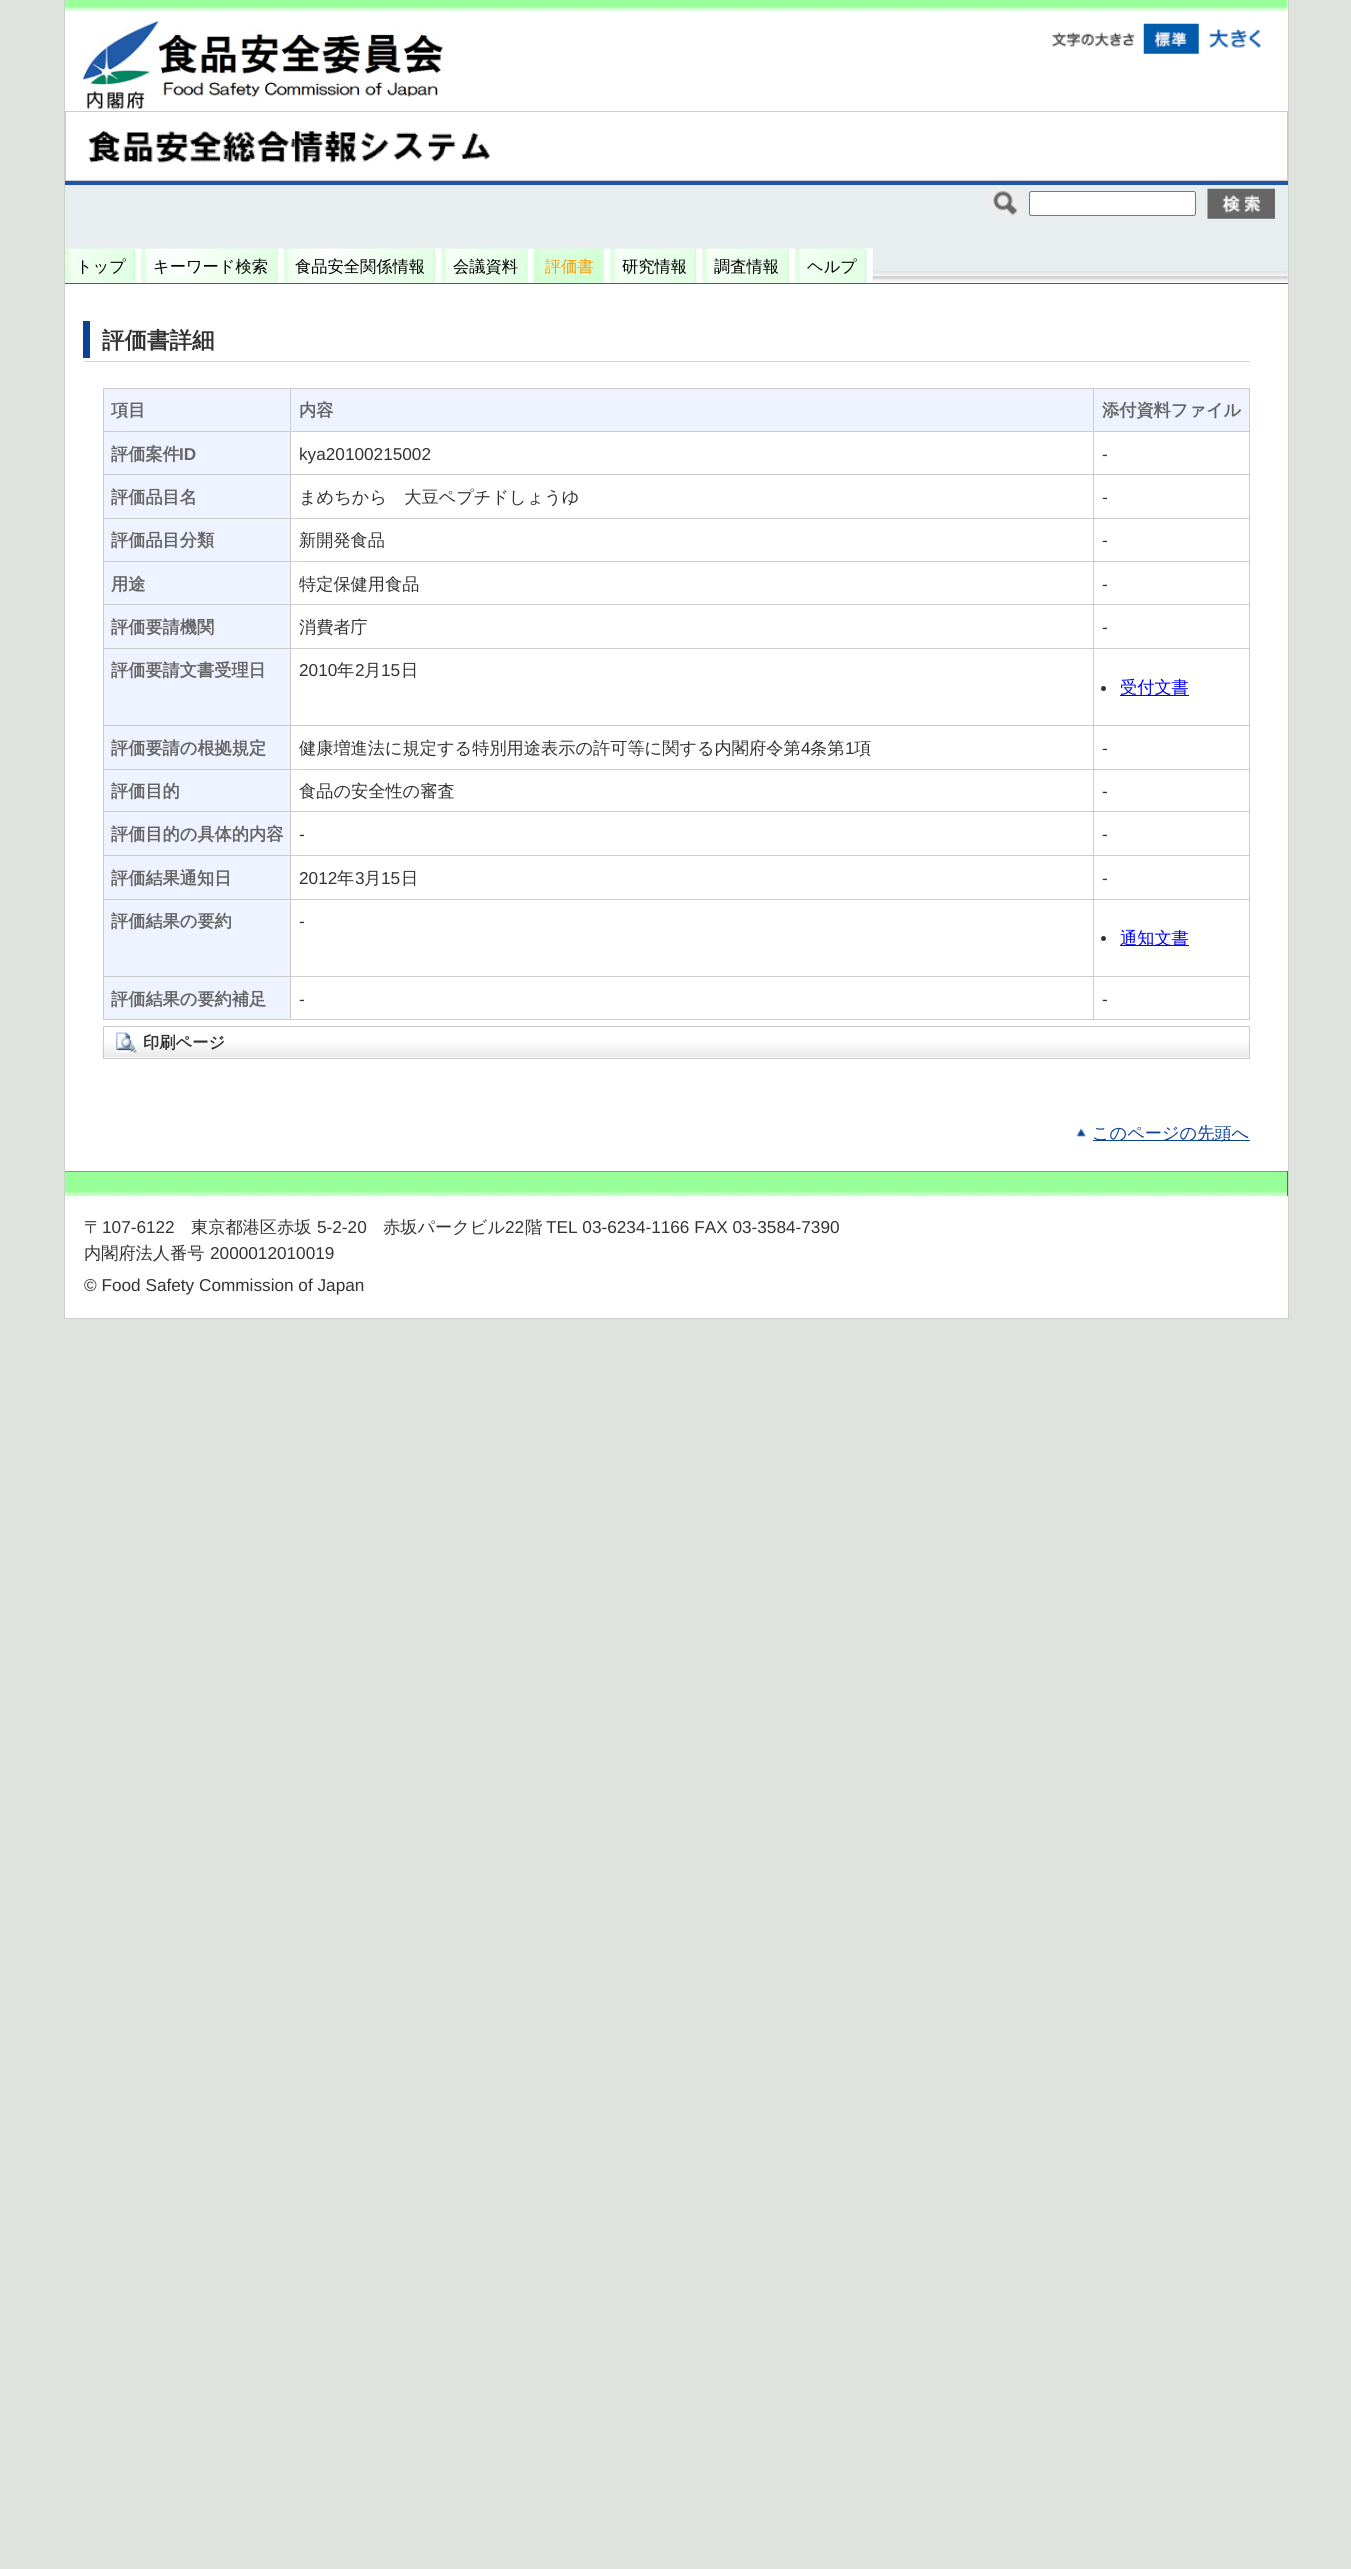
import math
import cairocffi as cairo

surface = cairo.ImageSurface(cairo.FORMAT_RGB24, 1351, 2569)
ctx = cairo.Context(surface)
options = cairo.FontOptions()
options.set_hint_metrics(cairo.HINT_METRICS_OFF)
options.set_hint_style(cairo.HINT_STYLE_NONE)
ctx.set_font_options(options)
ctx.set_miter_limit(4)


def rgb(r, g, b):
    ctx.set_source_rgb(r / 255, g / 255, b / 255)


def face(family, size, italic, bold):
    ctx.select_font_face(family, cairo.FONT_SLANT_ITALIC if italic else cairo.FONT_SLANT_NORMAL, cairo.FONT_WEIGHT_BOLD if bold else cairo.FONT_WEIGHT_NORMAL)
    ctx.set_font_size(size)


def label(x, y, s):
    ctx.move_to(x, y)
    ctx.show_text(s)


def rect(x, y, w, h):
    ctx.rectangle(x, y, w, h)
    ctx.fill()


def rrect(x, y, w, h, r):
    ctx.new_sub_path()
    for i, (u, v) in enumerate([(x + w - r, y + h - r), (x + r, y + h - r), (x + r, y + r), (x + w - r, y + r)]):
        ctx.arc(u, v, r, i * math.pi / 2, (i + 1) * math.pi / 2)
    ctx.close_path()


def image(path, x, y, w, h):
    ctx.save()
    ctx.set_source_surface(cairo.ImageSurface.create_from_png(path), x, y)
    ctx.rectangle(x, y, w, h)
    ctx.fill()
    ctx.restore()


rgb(222, 227, 221)
ctx.paint()
rgb(255, 255, 255)
rect(65, 0, 1223, 1318)
rgb(204, 208, 203)
rect(1288, 0, 1, 1319)
rect(64, 1318, 1225, 1)
rect(64, 0, 1, 1319)
image('image0.png', 65, 0, 1223, 12)
image('image1.png', 80, 21, 365, 88)
image('image2.png', 1052, 32, 82, 15)
image('image3.png', 1143, 23, 56, 31)
image('image4.png', 1208, 28, 54, 21)
ctx.rectangle(65.5, 111.5, 1222, 69)
rgb(204, 204, 204)
ctx.set_line_width(1)
ctx.stroke()
image('image5.png', 88, 130, 403, 33)
rgb(232, 237, 240)
rect(65, 185, 1223, 98)
image('image6.png', 65, 271, 1223, 12)
rgb(33, 84, 167)
rect(65, 181, 1223, 4)
image('image7.png', 989, 189, 34, 29)
rgb(255, 255, 255)
rrect(1029.5, 191.5, 166, 24, 2)
ctx.fill_preserve()
rgb(118, 118, 118)
ctx.stroke()
image('image8.png', 1207, 188, 68, 31)
rgb(39, 99, 165)
rect(65, 283, 1223, 1)
image('image9.png', 65, 248, 77, 35)
image('image10.png', 70, 248, 72, 35)
face('WenQuanYi Zen Hei Medium', 16.25, 0, 0)
rgb(0, 0, 0)
label(76, 272, 'トップ')
image('image11.png', 141, 248, 143, 35)
image('image12.png', 146, 248, 138, 35)
label(153, 272, 'キーワード検索')
image('image13.png', 283, 248, 159, 35)
image('image14.png', 288, 248, 154, 35)
label(295, 272, '食品安全関係情報')
image('image15.png', 441, 248, 93, 35)
image('image16.png', 446, 248, 88, 35)
label(453, 272, '会議資料')
image('image17.png', 533, 248, 77, 35)
image('image18.png', 539, 248, 71, 35)
rgb(255, 153, 0)
label(545, 272, '評価書')
image('image19.png', 610, 248, 93, 35)
image('image20.png', 615, 248, 88, 35)
rgb(0, 0, 0)
label(622, 272, '研究情報')
image('image21.png', 702, 248, 93, 35)
image('image22.png', 707, 248, 88, 35)
label(714, 272, '調査情報')
image('image23.png', 795, 248, 78, 35)
image('image24.png', 800, 248, 73, 35)
label(807, 272, 'ヘルプ')
rgb(11, 65, 153)
rect(83, 321, 7, 37)
rgb(213, 212, 212)
rect(84, 361, 1166, 1)
face('WenQuanYi Zen Hei', 22.5, 0, 1)
rgb(51, 51, 51)
label(102, 348, '評価書詳細')
rgb(204, 204, 204)
rect(103, 388, 1147, 1)
rect(103, 388, 1, 632)
rgb(239, 242, 255)
rect(104, 389, 186, 42)
rgb(204, 204, 204)
rect(1249, 388, 1, 632)
rect(1093, 1019, 157, 1)
rect(1093, 976, 1, 44)
rect(1093, 976, 157, 1)
rect(1093, 899, 1, 79)
rect(1093, 899, 157, 1)
rect(1093, 855, 1, 45)
rect(1093, 855, 157, 1)
rect(1093, 811, 1, 45)
rect(1093, 811, 157, 1)
rect(1093, 769, 1, 44)
rect(1093, 769, 157, 1)
rect(1093, 725, 1, 45)
rect(1093, 725, 157, 1)
rect(1093, 648, 1, 78)
rect(1093, 648, 157, 1)
rect(1093, 604, 1, 45)
rect(1093, 604, 157, 1)
rect(1093, 561, 1, 44)
rect(1093, 561, 157, 1)
rect(1093, 518, 1, 45)
rect(1093, 518, 157, 1)
rect(1093, 474, 1, 45)
rect(1093, 474, 157, 1)
rect(1093, 431, 1, 44)
rect(1093, 431, 157, 1)
rect(1093, 388, 1, 45)
rect(290, 1019, 804, 1)
rect(290, 976, 1, 44)
rect(290, 976, 804, 1)
rect(290, 899, 1, 79)
rect(290, 899, 804, 1)
rect(290, 855, 1, 45)
rect(290, 855, 804, 1)
rect(290, 811, 1, 45)
rect(290, 811, 804, 1)
rect(290, 769, 1, 44)
rect(290, 769, 804, 1)
rect(290, 725, 1, 45)
rect(290, 725, 804, 1)
rect(290, 648, 1, 78)
rect(290, 648, 804, 1)
rect(290, 604, 1, 45)
rect(290, 604, 804, 1)
rect(290, 561, 1, 44)
rect(290, 561, 804, 1)
rect(290, 518, 1, 45)
rect(290, 518, 804, 1)
rect(290, 474, 1, 45)
rect(290, 474, 804, 1)
rect(290, 431, 1, 44)
rect(290, 431, 804, 1)
rect(290, 388, 1, 45)
rect(103, 431, 188, 1)
face('WenQuanYi Zen Hei', 17.2, 0, 1)
rgb(102, 102, 102)
label(111, 416, '項目')
rgb(239, 242, 255)
rect(291, 389, 802, 42)
rgb(102, 102, 102)
label(299, 416, '内容')
rgb(239, 242, 255)
rect(1094, 389, 155, 42)
rgb(102, 102, 102)
label(1102, 416, '添付資料ファイル')
rgb(239, 242, 255)
rect(104, 432, 186, 42)
rgb(204, 204, 204)
rect(103, 474, 188, 1)
rgb(102, 102, 102)
label(111, 460, '評価案件')
face('Liberation Sans', 17.2, 0, 1)
label(179, 460, 'ID')
face('Liberation Sans', 17.2, 0, 0)
rgb(51, 51, 51)
label(299, 460, 'kya20100215002')
label(1102, 460, '-')
rgb(239, 242, 255)
rect(104, 475, 186, 43)
rgb(204, 204, 204)
rect(103, 518, 188, 1)
face('WenQuanYi Zen Hei', 17.2, 0, 1)
rgb(102, 102, 102)
label(111, 503, '評価品目名')
face('WenQuanYi Zen Hei Medium', 17.2, 0, 0)
rgb(51, 51, 51)
label(299, 503, 'まめちから　大豆ペプチドしょうゆ')
face('Liberation Sans', 17.2, 0, 0)
label(1102, 503, '-')
rgb(239, 242, 255)
rect(104, 519, 186, 42)
rgb(204, 204, 204)
rect(103, 561, 188, 1)
face('WenQuanYi Zen Hei', 17.2, 0, 1)
rgb(102, 102, 102)
label(111, 546, '評価品目分類')
face('WenQuanYi Zen Hei Medium', 17.2, 0, 0)
rgb(51, 51, 51)
label(299, 546, '新開発食品')
face('Liberation Sans', 17.2, 0, 0)
label(1102, 546, '-')
rgb(239, 242, 255)
rect(104, 562, 186, 42)
rgb(204, 204, 204)
rect(103, 604, 188, 1)
face('WenQuanYi Zen Hei', 17.2, 0, 1)
rgb(102, 102, 102)
label(111, 590, '用途')
face('WenQuanYi Zen Hei Medium', 17.2, 0, 0)
rgb(51, 51, 51)
label(299, 590, '特定保健用食品')
face('Liberation Sans', 17.2, 0, 0)
label(1102, 590, '-')
rgb(239, 242, 255)
rect(104, 605, 186, 43)
rgb(204, 204, 204)
rect(103, 648, 188, 1)
face('WenQuanYi Zen Hei', 17.2, 0, 1)
rgb(102, 102, 102)
label(111, 633, '評価要請機関')
face('WenQuanYi Zen Hei Medium', 17.2, 0, 0)
rgb(51, 51, 51)
label(299, 633, '消費者庁')
face('Liberation Sans', 17.2, 0, 0)
label(1102, 633, '-')
rgb(239, 242, 255)
rect(104, 649, 186, 76)
rgb(204, 204, 204)
rect(103, 725, 188, 1)
face('WenQuanYi Zen Hei', 17.2, 0, 1)
rgb(102, 102, 102)
label(111, 676, '評価要請文書受理日')
face('Liberation Sans', 17.2, 0, 0)
rgb(51, 51, 51)
label(299, 676, '2010')
face('WenQuanYi Zen Hei Medium', 17.2, 0, 0)
label(337, 676, '年')
face('Liberation Sans', 17.2, 0, 0)
label(355, 676, '2')
face('WenQuanYi Zen Hei Medium', 17.2, 0, 0)
label(364, 676, '月')
face('Liberation Sans', 17.2, 0, 0)
label(381, 676, '15')
face('WenQuanYi Zen Hei Medium', 17.2, 0, 0)
label(401, 676, '日')
ctx.new_path()
ctx.arc(1103.5, 688.5, 2.5, 0, 2 * math.pi)
ctx.fill()
rgb(0, 0, 255)
rect(1120, 695, 69, 1)
label(1120, 693, '受付文書')
rgb(239, 242, 255)
rect(104, 726, 186, 43)
rgb(204, 204, 204)
rect(103, 769, 188, 1)
face('WenQuanYi Zen Hei', 17.2, 0, 1)
rgb(102, 102, 102)
label(111, 754, '評価要請の根拠規定')
face('WenQuanYi Zen Hei Medium', 17.2, 0, 0)
rgb(51, 51, 51)
label(299, 754, '健康増進法に規定する特別用途表示の許可等に関する内閣府令第')
face('Liberation Sans', 17.2, 0, 0)
label(801, 754, '4')
face('WenQuanYi Zen Hei Medium', 17.2, 0, 0)
label(810, 754, '条第')
face('Liberation Sans', 17.2, 0, 0)
label(845, 754, '1')
face('WenQuanYi Zen Hei Medium', 17.2, 0, 0)
label(854, 754, '項')
face('Liberation Sans', 17.2, 0, 0)
label(1102, 754, '-')
rgb(239, 242, 255)
rect(104, 770, 186, 85)
rgb(204, 204, 204)
rect(103, 811, 188, 1)
face('WenQuanYi Zen Hei', 17.2, 0, 1)
rgb(102, 102, 102)
label(111, 797, '評価目的')
face('WenQuanYi Zen Hei Medium', 17.2, 0, 0)
rgb(51, 51, 51)
label(299, 797, '食品の安全性の審査')
face('Liberation Sans', 17.2, 0, 0)
label(1102, 797, '-')
rgb(204, 204, 204)
rect(103, 855, 188, 1)
face('WenQuanYi Zen Hei', 17.2, 0, 1)
rgb(102, 102, 102)
label(111, 840, '評価目的の具体的内容')
face('Liberation Sans', 17.2, 0, 0)
rgb(51, 51, 51)
label(299, 840, '-')
label(1102, 840, '-')
rgb(239, 242, 255)
rect(104, 856, 186, 43)
rgb(204, 204, 204)
rect(103, 899, 188, 1)
face('WenQuanYi Zen Hei', 17.2, 0, 1)
rgb(102, 102, 102)
label(111, 884, '評価結果通知日')
face('Liberation Sans', 17.2, 0, 0)
rgb(51, 51, 51)
label(299, 884, '2012')
face('WenQuanYi Zen Hei Medium', 17.2, 0, 0)
label(337, 884, '年')
face('Liberation Sans', 17.2, 0, 0)
label(355, 884, '3')
face('WenQuanYi Zen Hei Medium', 17.2, 0, 0)
label(364, 884, '月')
face('Liberation Sans', 17.2, 0, 0)
label(381, 884, '15')
face('WenQuanYi Zen Hei Medium', 17.2, 0, 0)
label(401, 884, '日')
face('Liberation Sans', 17.2, 0, 0)
label(1102, 884, '-')
rgb(239, 242, 255)
rect(104, 900, 186, 76)
rgb(204, 204, 204)
rect(103, 976, 188, 1)
face('WenQuanYi Zen Hei', 17.2, 0, 1)
rgb(102, 102, 102)
label(111, 927, '評価結果の要約')
face('Liberation Sans', 17.2, 0, 0)
rgb(51, 51, 51)
label(299, 927, '-')
ctx.new_path()
ctx.arc(1103.5, 938.5, 2.5, 0, 2 * math.pi)
ctx.fill()
rgb(0, 0, 255)
rect(1120, 945, 69, 1)
face('WenQuanYi Zen Hei Medium', 17.2, 0, 0)
label(1120, 944, '通知文書')
rgb(239, 242, 255)
rect(104, 977, 186, 42)
rgb(204, 204, 204)
rect(103, 1019, 188, 1)
face('WenQuanYi Zen Hei', 17.2, 0, 1)
rgb(102, 102, 102)
label(111, 1005, '評価結果の要約補足')
face('Liberation Sans', 17.2, 0, 0)
rgb(51, 51, 51)
label(299, 1005, '-')
label(1102, 1005, '-')
image('image25.png', 102, 1042, 1147, 16)
ctx.rectangle(103.5, 1026.5, 1146, 32)
rgb(204, 204, 204)
ctx.stroke()
image('image26.png', 116, 1032, 21, 21)
face('WenQuanYi Zen Hei', 16.25, 0, 1)
rgb(51, 51, 51)
label(143, 1048, '印刷ページ')
image('image27.png', 1076, 1128, 11, 9)
rgb(11, 65, 153)
rect(1093, 1140, 157, 1)
face('WenQuanYi Zen Hei Medium', 17.2, 0, 0)
label(1092, 1139, 'このページの先頭へ')
rect(65, 1171, 1223, 25)
image('image28.png', 65, 1171, 1223, 26)
rgb(51, 51, 51)
label(84, 1233, '〒')
face('Liberation Sans', 17.2, 0, 0)
label(102, 1233, '107-6122')
face('WenQuanYi Zen Hei Medium', 17.2, 0, 0)
label(191, 1233, '東京都港区赤坂')
face('Liberation Sans', 17.2, 0, 0)
label(317, 1233, '5-2-20')
face('WenQuanYi Zen Hei Medium', 17.2, 0, 0)
label(383, 1233, '赤坂パークビル')
face('Liberation Sans', 17.2, 0, 0)
label(505, 1233, '22')
face('WenQuanYi Zen Hei Medium', 17.2, 0, 0)
label(525, 1233, '階')
face('Liberation Sans', 17.2, 0, 0)
label(546, 1233, 'TEL 03-6234-1166 FAX 03-3584-7390')
face('WenQuanYi Zen Hei Medium', 17.2, 0, 0)
label(84, 1259, '内閣府法人番号')
face('Liberation Sans', 17.2, 0, 0)
label(210, 1259, '2000012010019')
label(84, 1291, '© Food Safety Commission of Japan')
surface.write_to_png('render.png')
